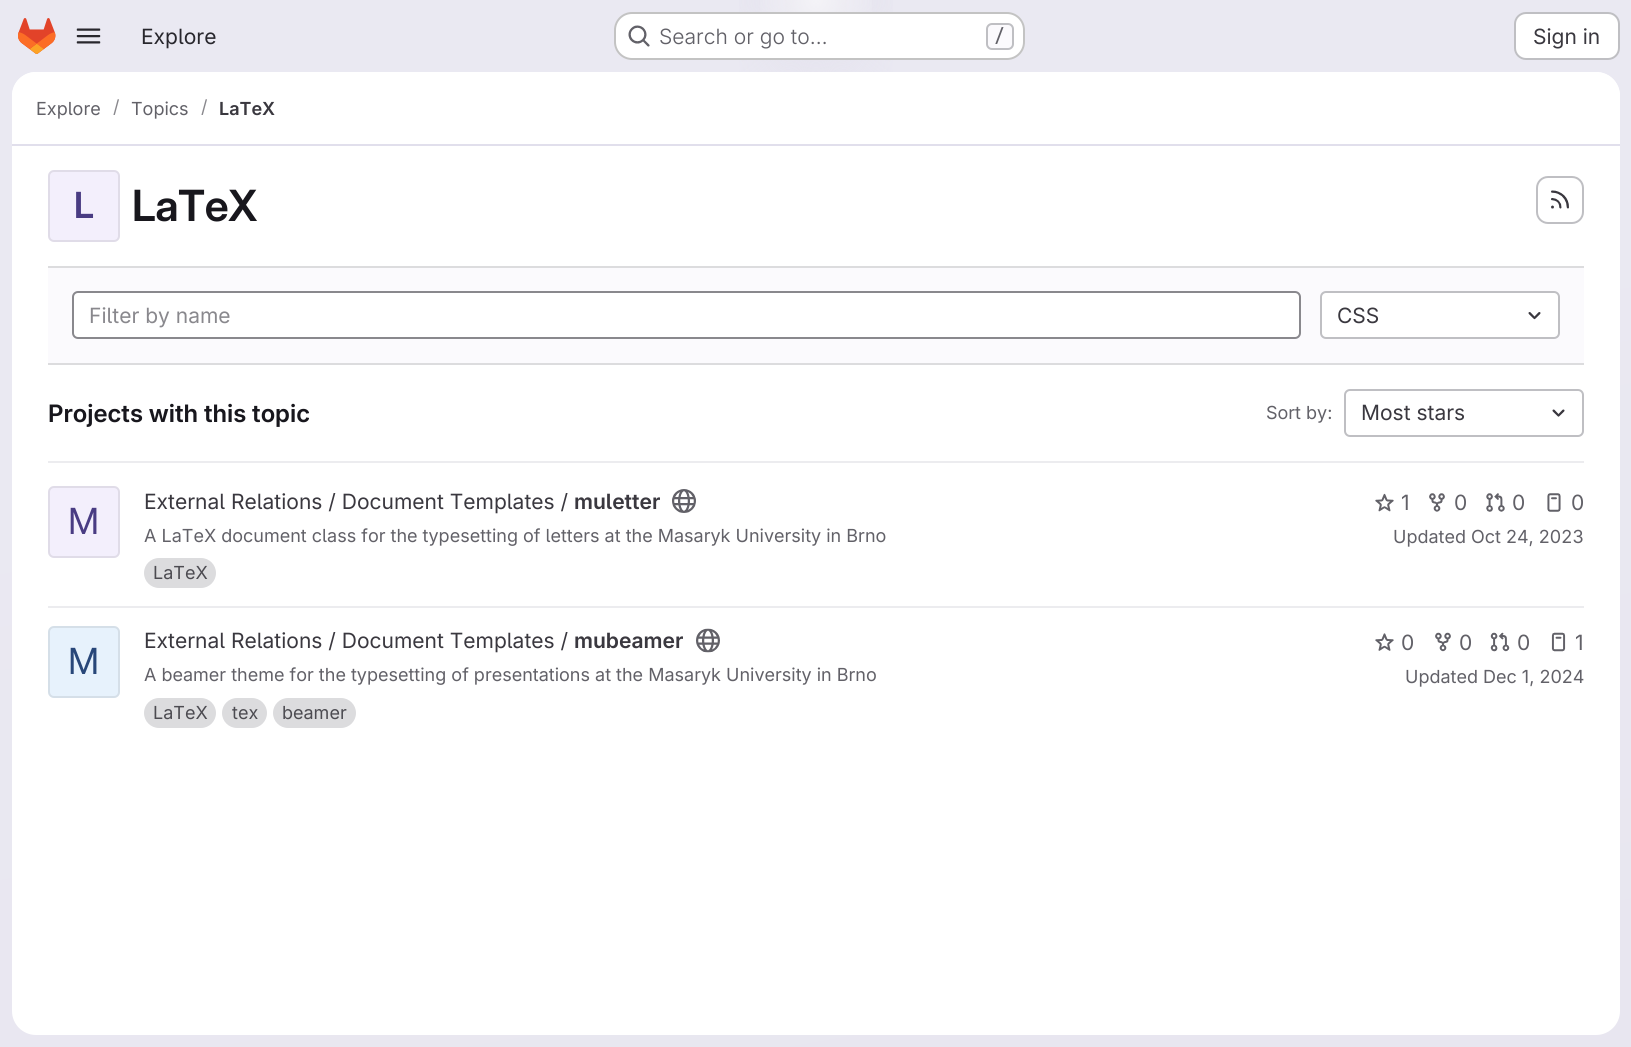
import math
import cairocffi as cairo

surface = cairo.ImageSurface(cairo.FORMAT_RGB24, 1631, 1047)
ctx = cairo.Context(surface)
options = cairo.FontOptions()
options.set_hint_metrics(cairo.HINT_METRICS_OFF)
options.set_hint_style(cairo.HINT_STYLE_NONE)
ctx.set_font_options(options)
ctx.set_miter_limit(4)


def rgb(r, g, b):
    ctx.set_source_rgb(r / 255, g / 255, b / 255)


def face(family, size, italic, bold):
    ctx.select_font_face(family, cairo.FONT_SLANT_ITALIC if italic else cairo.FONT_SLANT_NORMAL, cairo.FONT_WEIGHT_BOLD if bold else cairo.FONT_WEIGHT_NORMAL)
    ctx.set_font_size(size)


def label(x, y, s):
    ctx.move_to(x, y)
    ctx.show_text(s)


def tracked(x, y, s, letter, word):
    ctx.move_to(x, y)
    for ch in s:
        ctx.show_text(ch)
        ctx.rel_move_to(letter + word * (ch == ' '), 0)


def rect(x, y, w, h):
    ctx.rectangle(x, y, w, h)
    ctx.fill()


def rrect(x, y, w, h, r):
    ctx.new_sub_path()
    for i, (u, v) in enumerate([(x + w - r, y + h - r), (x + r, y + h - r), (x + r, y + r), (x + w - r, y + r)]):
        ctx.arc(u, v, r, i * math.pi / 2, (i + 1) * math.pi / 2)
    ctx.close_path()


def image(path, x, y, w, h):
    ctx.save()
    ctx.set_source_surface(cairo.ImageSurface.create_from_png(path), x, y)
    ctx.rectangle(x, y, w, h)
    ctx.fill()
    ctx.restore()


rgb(255, 255, 255)
ctx.paint()
gradient = cairo.LinearGradient(930, 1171, 702, -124)
gradient.add_color_stop_rgba(0, 0.91, 0.902, 0.941, 1)
gradient.add_color_stop_rgba(0.7, 0.918, 0.914, 0.949, 1)
ctx.set_source(gradient)
rect(0, 0, 1631, 1047)
gradient = cairo.RadialGradient(0, 0, 0, 0, 0, 1)
gradient.set_matrix(cairo.Matrix(1 / 816, 0, 0, 1 / 1047, -1 * 816 / 816, -1 * 0 / 1047))
gradient.add_color_stop_rgba(0, 0.894, 0.886, 0.929, 1)
gradient.add_color_stop_rgba(0.13, 0.894, 0.886, 0.929, 0)
ctx.set_source(gradient)
rect(739, 0, 154, 72)
gradient = cairo.RadialGradient(0, 0, 0, 0, 0, 1)
gradient.set_matrix(cairo.Matrix(1 / 816, 0, 0, 1 / 1047, -1 * 816 / 816, -1 * 0 / 1047))
gradient.add_color_stop_rgba(0, 0.894, 0.886, 0.925, 1)
gradient.add_color_stop_rgba(0.09, 0.894, 0.886, 0.925, 0)
ctx.set_source(gradient)
rect(785, 0, 62, 35)
gradient = cairo.RadialGradient(816, 0, 0, 816, 0, 1327)
gradient.add_color_stop_rgba(0, 1, 1, 1, 0.6)
gradient.add_color_stop_rgba(0.05, 1, 1, 1, 0)
ctx.set_source(gradient)
rect(760, 0, 112, 12)
image('image0.png', 18, 18, 38, 36)
image('image1.png', 76, 28, 25, 16)
face('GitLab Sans', 21, 0, 0)
rgb(40, 39, 45)
label(141, 44, 'Explore')
rgb(255, 255, 255)
rrect(614, 12, 411, 48, 18)
ctx.fill()
rrect(615, 13, 409, 46, 17)
ctx.set_source_rgba(0.02, 0.02, 0.024, 0.24)
ctx.stroke()
image('image2.png', 628, 25, 22, 22)
face('GitLab Sans Light', 21, 0, 0)
rgb(98, 97, 104)
label(659, 44, 'Search or go to…')
rgb(251, 250, 253)
rrect(987, 24, 26, 25, 5)
ctx.fill_preserve()
rgb(191, 191, 195)
ctx.stroke()
face('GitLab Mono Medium', 18, 0, 0)
rgb(98, 97, 104)
label(994, 42, '/')
rgb(255, 255, 255)
rrect(1515, 13, 104, 46, 11)
ctx.fill_preserve()
rgb(191, 191, 195)
ctx.stroke()
face('GitLab Sans', 21, 0, 0)
rgb(58, 56, 63)
label(1533, 44, 'Sign in')
rgb(255, 255, 255)
rrect(12, 72, 1608, 963, 24)
ctx.fill()
ctx.new_path()
ctx.move_to(36, 72)
ctx.line_to(1596, 72)
ctx.curve_to(1609.5, 72, 1620, 82.5, 1620, 96)
ctx.line_to(1620, 146)
ctx.line_to(12, 146)
ctx.line_to(12, 96)
ctx.curve_to(12, 82.5, 22.5, 72, 36, 72)
ctx.close_path()
ctx.fill()
rgb(225, 223, 236)
rect(12, 144, 1608, 2)
face('GitLab Sans', 18, 0, 0)
rgb(98, 97, 104)
label(36, 115, 'Explore')
rgb(137, 136, 141)
label(113, 113, '/')
rgb(98, 97, 104)
label(131, 115, 'Topics')
rgb(137, 136, 141)
label(201, 113, '/')
face('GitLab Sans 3 SemiBold', 18, 0, 0)
rgb(58, 56, 63)
label(219, 115, 'LaTeX')
rgb(243, 239, 252)
rrect(48, 170, 72, 72, 6)
ctx.fill()
rrect(49, 171, 70, 70, 5)
ctx.set_source_rgba(0.02, 0.02, 0.024, 0.08)
ctx.stroke()
face('GitLab Sans SemiBold', 36, 0, 0)
rgb(73, 60, 131)
tracked(74, 218, 'L', -0.5, 0)
face('GitLab Sans SemiBold', 43, 0, 0)
rgb(24, 23, 29)
tracked(132, 221, 'LaTeX', -0.5, 0)
rrect(1537, 177, 46, 46, 11)
rgb(191, 191, 195)
ctx.stroke()
image('image3.png', 1551, 190, 18, 19)
rgb(251, 250, 253)
rect(48, 268, 1536, 95)
rgb(220, 220, 222)
rect(48, 266, 1536, 2)
rect(48, 363, 1536, 2)
rgb(255, 255, 255)
rrect(73, 292, 1227, 46, 5)
ctx.fill_preserve()
rgb(137, 136, 141)
ctx.stroke()
face('GitLab Sans', 21, 0, 0)
label(89, 323, 'Filter by name')
rgb(255, 255, 255)
rrect(1321, 292, 238, 46, 5)
ctx.fill_preserve()
rgb(191, 191, 195)
ctx.stroke()
rgb(58, 56, 63)
label(1337, 323, 'CSS')
image('image4.png', 1528, 312, 13, 8)
rgb(236, 236, 239)
rect(48, 461, 1536, 2)
face('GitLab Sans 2 SemiBold', 24, 0, 0)
rgb(24, 23, 29)
label(48, 422, 'Projects with this topic')
face('GitLab Sans', 18, 0, 0)
rgb(98, 97, 104)
label(1266, 419, 'Sort by:')
rrect(1345, 390, 238, 46, 5)
rgb(191, 191, 195)
ctx.stroke()
face('GitLab Sans', 21, 0, 0)
rgb(58, 56, 63)
label(1361, 420, 'Most stars')
image('image5.png', 1552, 409, 13, 8)
rgb(236, 236, 239)
rect(48, 606, 1536, 2)
rgb(243, 239, 252)
rrect(48, 486, 72, 72, 6)
ctx.fill()
rrect(49, 487, 70, 70, 5)
ctx.set_source_rgba(0.02, 0.02, 0.024, 0.08)
ctx.stroke()
face('GitLab Sans 2', 36, 0, 0)
rgb(73, 60, 131)
label(68, 534, 'M')
face('GitLab Sans', 21, 0, 0)
rgb(58, 56, 63)
label(144, 509, 'External Relations / Document Templates /')
face('GitLab Sans 3 SemiBold', 21, 0, 0)
label(574, 509, 'muletter')
image('image6.png', 672, 489, 24, 24)
face('GitLab Sans', 18, 0, 0)
rgb(98, 97, 104)
label(144, 542, 'A LaTeX document class for the typesetting of letters at the Masaryk University in Brno')
rgb(220, 220, 222)
rrect(144, 558, 72, 30, 15)
ctx.fill()
rgb(76, 75, 81)
label(153, 579, 'LaTeX')
image('image7.png', 1375, 493, 19, 19)
face('GitLab Sans', 21, 0, 0)
rgb(98, 97, 104)
label(1401, 510, '1')
image('image8.png', 1429, 493, 16, 19)
label(1454, 510, '0')
image('image9.png', 1486, 493, 19, 19)
label(1512, 510, '0')
image('image10.png', 1547, 493, 14, 19)
label(1571, 510, '0')
face('GitLab Sans', 18, 0, 0)
label(1393, 543, 'Updated Oct 24, 2023')
rgb(231, 242, 252)
rrect(48, 626, 72, 72, 6)
ctx.fill()
rrect(49, 627, 70, 70, 5)
ctx.set_source_rgba(0.02, 0.02, 0.024, 0.08)
ctx.stroke()
face('GitLab Sans 2', 36, 0, 0)
rgb(40, 71, 121)
label(68, 674, 'M')
face('GitLab Sans', 21, 0, 0)
rgb(58, 56, 63)
label(144, 648, 'External Relations / Document Templates /')
face('GitLab Sans 3 SemiBold', 21, 0, 0)
label(574, 648, 'mubeamer')
image('image11.png', 696, 628, 24, 25)
face('GitLab Sans', 18, 0, 0)
rgb(98, 97, 104)
label(144, 681, 'A beamer theme for the typesetting of presentations at the Masaryk University in Brno')
rgb(220, 220, 222)
rrect(144, 698, 72, 30, 15)
ctx.fill()
rgb(76, 75, 81)
label(153, 719, 'LaTeX')
rgb(220, 220, 222)
rrect(222, 698, 45, 30, 15)
ctx.fill()
rgb(76, 75, 81)
label(232, 719, 'tex')
rgb(220, 220, 222)
rrect(273, 698, 83, 30, 15)
ctx.fill()
rgb(76, 75, 81)
label(282, 719, 'beamer')
image('image12.png', 1375, 633, 19, 18)
face('GitLab Sans', 21, 0, 0)
rgb(98, 97, 104)
label(1401, 650, '0')
image('image13.png', 1435, 632, 16, 20)
label(1459, 650, '0')
image('image14.png', 1490, 632, 20, 20)
label(1517, 650, '0')
image('image15.png', 1551, 632, 15, 20)
label(1575, 650, '1')
face('GitLab Sans', 18, 0, 0)
label(1405, 683, 'Updated Dec 1, 2024')
surface.write_to_png('render.png')
